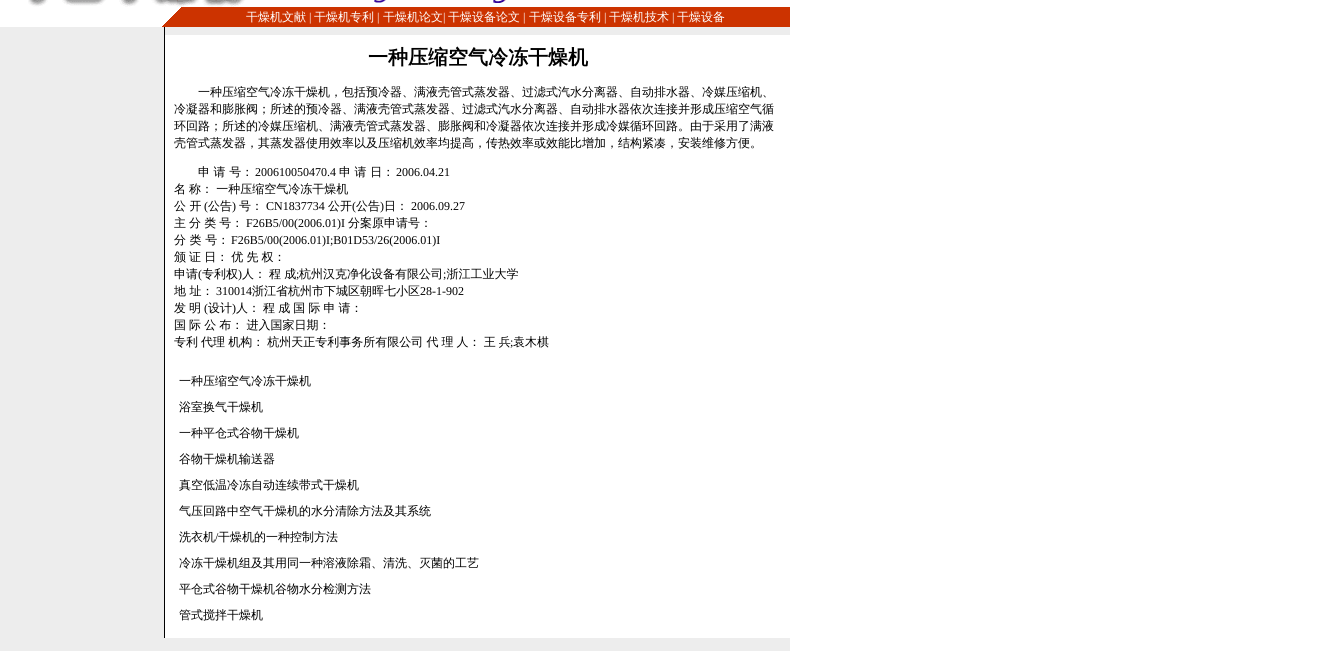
import math
import cairocffi as cairo

surface = cairo.ImageSurface(cairo.FORMAT_RGB24, 1340, 651)
ctx = cairo.Context(surface)
options = cairo.FontOptions()
options.set_hint_metrics(cairo.HINT_METRICS_OFF)
options.set_hint_style(cairo.HINT_STYLE_NONE)
ctx.set_font_options(options)
ctx.set_miter_limit(4)


def rgb(r, g, b):
    ctx.set_source_rgb(r / 255, g / 255, b / 255)


def face(family, size, italic, bold):
    ctx.select_font_face(family, cairo.FONT_SLANT_ITALIC if italic else cairo.FONT_SLANT_NORMAL, cairo.FONT_WEIGHT_BOLD if bold else cairo.FONT_WEIGHT_NORMAL)
    ctx.set_font_size(size)


def label(x, y, s):
    ctx.move_to(x, y)
    ctx.show_text(s)


def tracked(x, y, s, letter, word):
    ctx.move_to(x, y)
    for ch in s:
        ctx.show_text(ch)
        ctx.rel_move_to(letter + word * (ch == ' '), 0)


def rect(x, y, w, h):
    ctx.rectangle(x, y, w, h)
    ctx.fill()


def image(path, x, y, w, h):
    ctx.save()
    ctx.set_source_surface(cairo.ImageSurface.create_from_png(path), x, y)
    ctx.rectangle(x, y, w, h)
    ctx.fill()
    ctx.restore()


rgb(255, 255, 255)
ctx.paint()
image('image0.png', 28, 0, 478, 7)
image('image1.png', 162, 8, 19, 19)
rgb(204, 51, 0)
rect(181, 7, 609, 20)
face('WenQuanYi Zen Hei Medium', 12, 0, 0)
rgb(255, 255, 255)
label(246, 21, '干燥机文献')
face('Liberation Serif', 12, 0, 0)
label(309, 21, '|')
face('WenQuanYi Zen Hei Medium', 12, 0, 0)
label(314, 21, '干燥机专利')
face('Liberation Serif', 12, 0, 0)
label(377, 21, '|')
face('WenQuanYi Zen Hei Medium', 12, 0, 0)
label(383, 21, '干燥机论文')
face('Liberation Serif', 12, 0, 0)
label(443, 21, '|')
face('WenQuanYi Zen Hei Medium', 12, 0, 0)
label(448, 21, '干燥设备论文')
face('Liberation Serif', 12, 0, 0)
label(523, 21, '|')
face('WenQuanYi Zen Hei Medium', 12, 0, 0)
label(529, 21, '干燥设备专利')
face('Liberation Serif', 12, 0, 0)
label(604, 21, '|')
face('WenQuanYi Zen Hei Medium', 12, 0, 0)
label(609, 21, '干燥机技术')
face('Liberation Serif', 12, 0, 0)
label(672, 21, '|')
face('WenQuanYi Zen Hei Medium', 12, 0, 0)
label(677, 21, '干燥设备')
rgb(237, 237, 237)
rect(0, 27, 164, 611)
rgb(0, 0, 0)
rect(164, 27, 1, 611)
rgb(237, 237, 237)
rect(165, 27, 625, 8)
face('WenQuanYi Zen Hei', 20, 0, 1)
rgb(0, 0, 0)
label(368, 64, '一种压缩空气冷冻干燥机')
face('WenQuanYi Zen Hei Medium', 12, 0, 0)
label(198, 96, '一种压缩空气冷冻干燥机，包括预冷器、满液壳管式蒸发器、过滤式汽水分离器、自动排水器、冷媒压缩机、')
label(174, 113, '冷凝器和膨胀阀；所述的预冷器、满液壳管式蒸发器、过滤式汽水分离器、自动排水器依次连接并形成压缩空气循')
label(174, 130, '环回路；所述的冷媒压缩机、满液壳管式蒸发器、膨胀阀和冷凝器依次连接并形成冷媒循环回路。由于采用了满液')
label(174, 147, '壳管式蒸发器，其蒸发器使用效率以及压缩机效率均提高，传热效率或效能比增加，结构紧凑，安装维修方便。')
label(198, 176, '申 请 号：')
face('Liberation Serif', 12, 0, 0)
label(255, 176, '200610050470.4')
face('WenQuanYi Zen Hei Medium', 12, 0, 0)
label(339, 176, '申 请 日：')
face('Liberation Serif', 12, 0, 0)
label(396, 176, '2006.04.21')
face('WenQuanYi Zen Hei Medium', 12, 0, 0)
tracked(174, 193, '名 称： 一种压缩空气冷冻干燥机', 0, -0.5)
label(174, 210, '公 开')
face('Liberation Serif', 12, 0, 0)
label(204, 210, '(')
face('WenQuanYi Zen Hei Medium', 12, 0, 0)
label(208, 210, '公告')
face('Liberation Serif', 12, 0, 0)
label(232, 210, ')')
face('WenQuanYi Zen Hei Medium', 12, 0, 0)
label(239, 210, '号：')
face('Liberation Serif', 12, 0, 0)
label(266, 210, 'CN1837734')
face('WenQuanYi Zen Hei Medium', 12, 0, 0)
label(328, 210, '公开')
face('Liberation Serif', 12, 0, 0)
label(352, 210, '(')
face('WenQuanYi Zen Hei Medium', 12, 0, 0)
label(356, 210, '公告')
face('Liberation Serif', 12, 0, 0)
label(380, 210, ')')
face('WenQuanYi Zen Hei Medium', 12, 0, 0)
label(384, 210, '日：')
face('Liberation Serif', 12, 0, 0)
label(411, 210, '2006.09.27')
face('WenQuanYi Zen Hei Medium', 12, 0, 0)
tracked(174, 227, '主 分 类 号：', 0, -0.5)
face('Liberation Serif', 12, 0, 0)
label(246, 227, 'F26B5/00(2006.01)I')
face('WenQuanYi Zen Hei Medium', 12, 0, 0)
label(348, 227, '分案原申请号：')
label(174, 244, '分 类 号：')
face('Liberation Serif', 12, 0, 0)
label(231, 244, 'F26B5/00(2006.01)I;B01D53/26(2006.01)I')
face('WenQuanYi Zen Hei Medium', 12, 0, 0)
tracked(174, 261, '颁 证 日： 优 先 权：', 0, -0.5)
label(174, 278, '申请')
face('Liberation Serif', 12, 0, 0)
label(198, 278, '(')
face('WenQuanYi Zen Hei Medium', 12, 0, 0)
label(202, 278, '专利权')
face('Liberation Serif', 12, 0, 0)
label(238, 278, ')')
face('WenQuanYi Zen Hei Medium', 12, 0, 0)
tracked(242, 278, '人： 程 成', 0, -0.5)
face('Liberation Serif', 12, 0, 0)
label(296, 278, ';')
face('WenQuanYi Zen Hei Medium', 12, 0, 0)
label(299, 278, '杭州汉克净化设备有限公司 浙江工业大学')
face('Liberation Serif', 12, 0, 0)
label(443, 278, ';')
face('WenQuanYi Zen Hei Medium', 12, 0, 0)
label(174, 295, '地 址：')
face('Liberation Serif', 12, 0, 0)
label(216, 295, '310014')
face('WenQuanYi Zen Hei Medium', 12, 0, 0)
label(252, 295, '浙江省杭州市下城区朝晖七小区')
face('Liberation Serif', 12, 0, 0)
label(420, 295, '28-1-902')
face('WenQuanYi Zen Hei Medium', 12, 0, 0)
tracked(174, 312, '发 明', 0, -0.5)
face('Liberation Serif', 12, 0, 0)
label(204, 312, '(')
face('WenQuanYi Zen Hei Medium', 12, 0, 0)
label(208, 312, '设计')
face('Liberation Serif', 12, 0, 0)
label(232, 312, ')')
face('WenQuanYi Zen Hei Medium', 12, 0, 0)
tracked(236, 312, '人： 程 成 国 际 申 请：', 0, -0.5)
tracked(174, 329, '国 际 公 布： 进入国家日期：', 0, -0.5)
tracked(174, 346, '专利 代理 机构： 杭州天正专利事务所有限公司 代 理 人： 王 兵', 0, -0.5)
face('Liberation Serif', 12, 0, 0)
label(510, 346, ';')
face('WenQuanYi Zen Hei Medium', 12, 0, 0)
label(513, 346, '袁木棋')
label(179, 385, '一种压缩空气冷冻干燥机')
label(179, 411, '浴室换气干燥机')
label(179, 437, '一种平仓式谷物干燥机')
label(179, 463, '谷物干燥机输送器')
label(179, 489, '真空低温冷冻自动连续带式干燥机')
label(179, 515, '气压回路中空气干燥机的水分清除方法及其系统')
label(179, 541, '洗衣机')
face('Liberation Serif', 12, 0, 0)
label(215, 541, '/')
face('WenQuanYi Zen Hei Medium', 12, 0, 0)
label(218, 541, '干燥机的一种控制方法')
label(179, 567, '冷冻干燥机组及其用同一种溶液除霜、清洗、灭菌的工艺')
label(179, 593, '平仓式谷物干燥机谷物水分检测方法')
label(179, 619, '管式搅拌干燥机')
rgb(237, 237, 237)
rect(0, 638, 790, 13)
surface.write_to_png('render.png')
